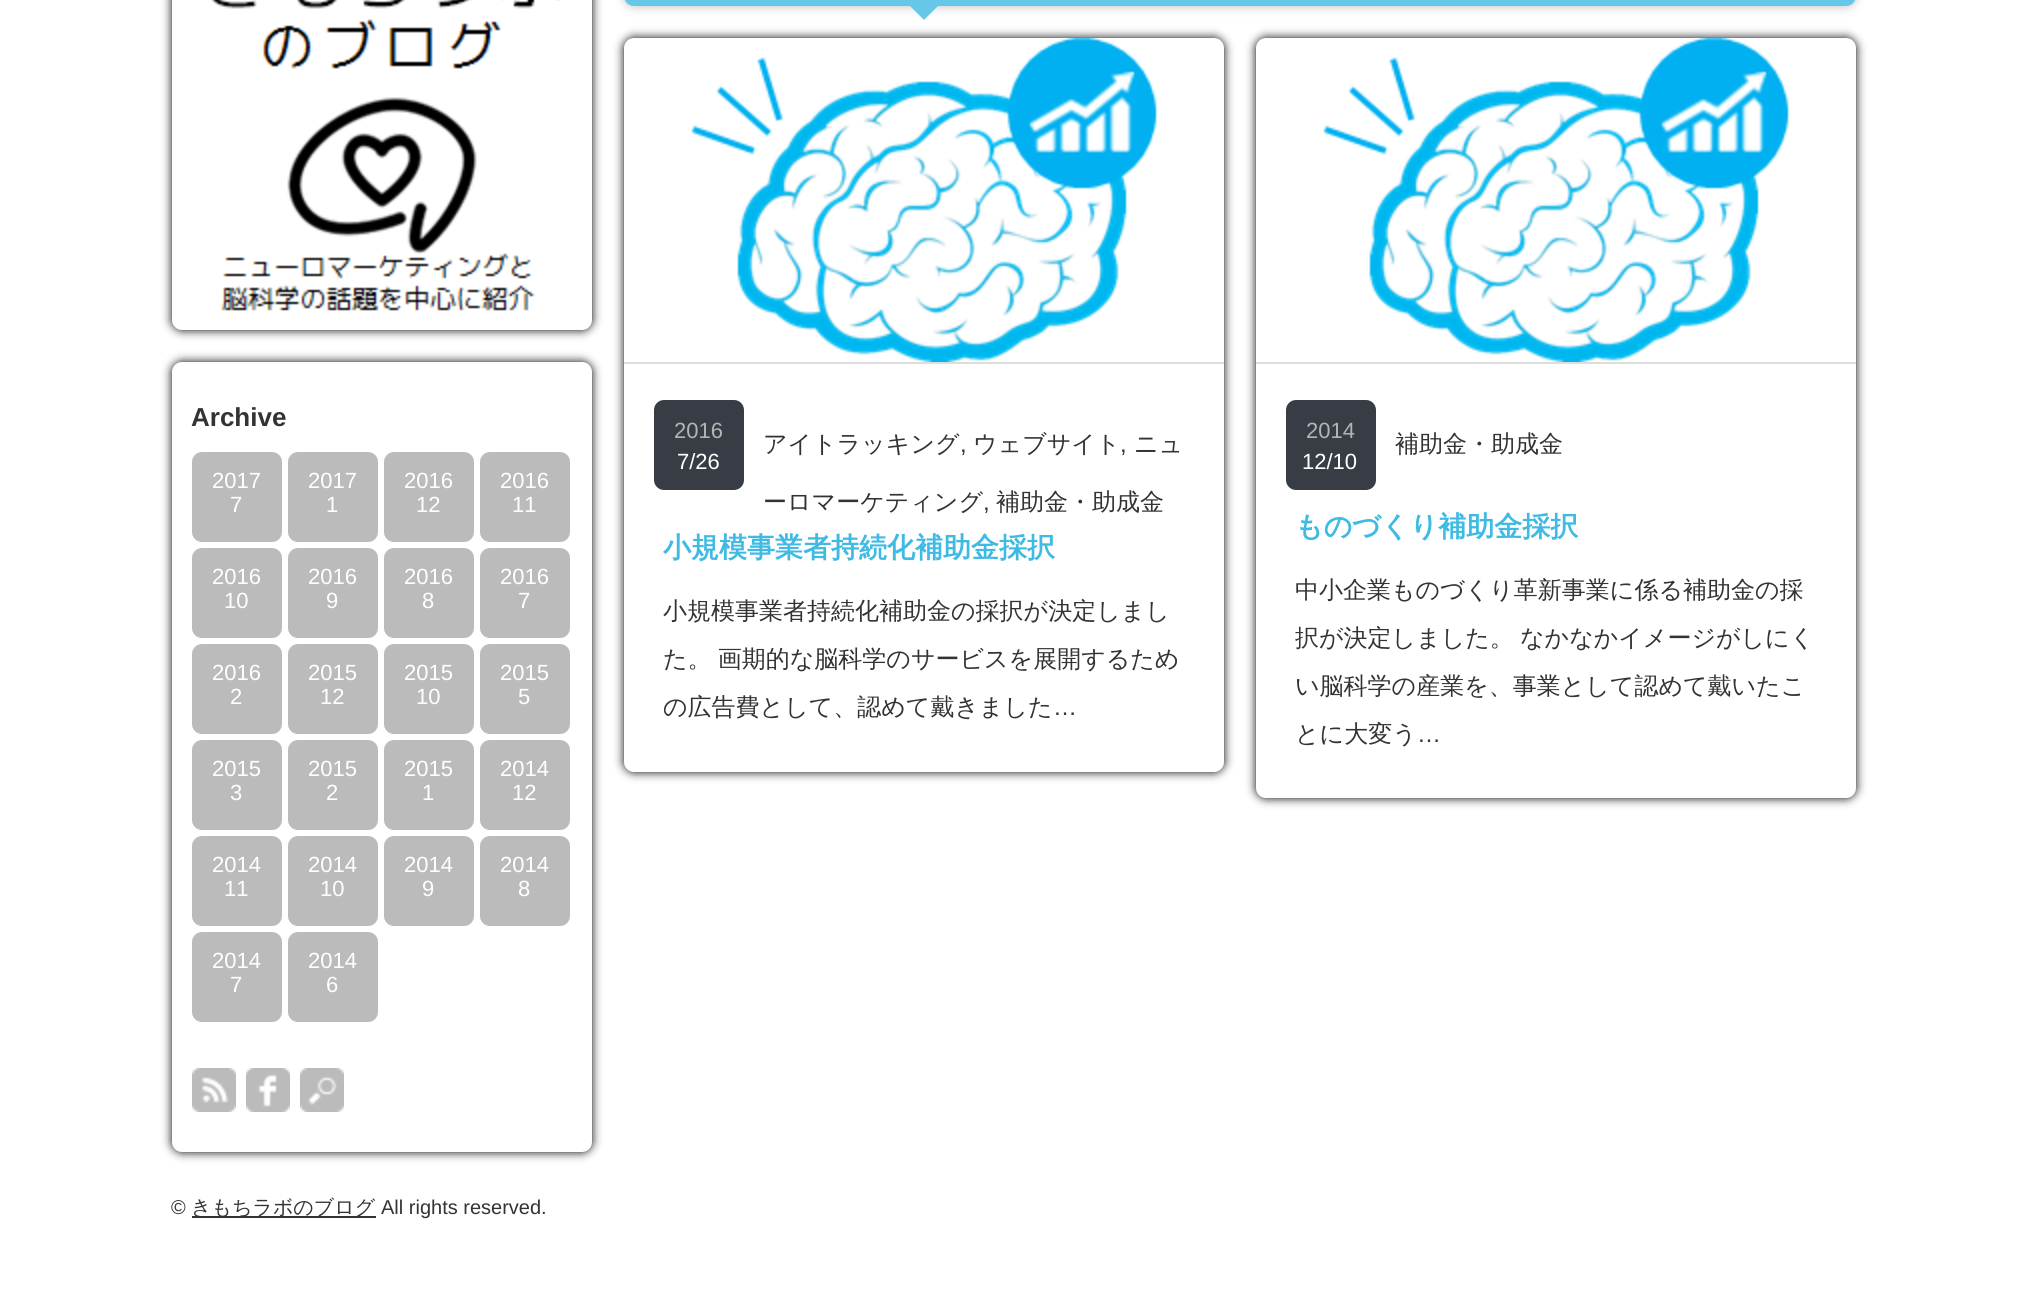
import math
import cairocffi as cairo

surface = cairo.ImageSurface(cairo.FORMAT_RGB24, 2042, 1294)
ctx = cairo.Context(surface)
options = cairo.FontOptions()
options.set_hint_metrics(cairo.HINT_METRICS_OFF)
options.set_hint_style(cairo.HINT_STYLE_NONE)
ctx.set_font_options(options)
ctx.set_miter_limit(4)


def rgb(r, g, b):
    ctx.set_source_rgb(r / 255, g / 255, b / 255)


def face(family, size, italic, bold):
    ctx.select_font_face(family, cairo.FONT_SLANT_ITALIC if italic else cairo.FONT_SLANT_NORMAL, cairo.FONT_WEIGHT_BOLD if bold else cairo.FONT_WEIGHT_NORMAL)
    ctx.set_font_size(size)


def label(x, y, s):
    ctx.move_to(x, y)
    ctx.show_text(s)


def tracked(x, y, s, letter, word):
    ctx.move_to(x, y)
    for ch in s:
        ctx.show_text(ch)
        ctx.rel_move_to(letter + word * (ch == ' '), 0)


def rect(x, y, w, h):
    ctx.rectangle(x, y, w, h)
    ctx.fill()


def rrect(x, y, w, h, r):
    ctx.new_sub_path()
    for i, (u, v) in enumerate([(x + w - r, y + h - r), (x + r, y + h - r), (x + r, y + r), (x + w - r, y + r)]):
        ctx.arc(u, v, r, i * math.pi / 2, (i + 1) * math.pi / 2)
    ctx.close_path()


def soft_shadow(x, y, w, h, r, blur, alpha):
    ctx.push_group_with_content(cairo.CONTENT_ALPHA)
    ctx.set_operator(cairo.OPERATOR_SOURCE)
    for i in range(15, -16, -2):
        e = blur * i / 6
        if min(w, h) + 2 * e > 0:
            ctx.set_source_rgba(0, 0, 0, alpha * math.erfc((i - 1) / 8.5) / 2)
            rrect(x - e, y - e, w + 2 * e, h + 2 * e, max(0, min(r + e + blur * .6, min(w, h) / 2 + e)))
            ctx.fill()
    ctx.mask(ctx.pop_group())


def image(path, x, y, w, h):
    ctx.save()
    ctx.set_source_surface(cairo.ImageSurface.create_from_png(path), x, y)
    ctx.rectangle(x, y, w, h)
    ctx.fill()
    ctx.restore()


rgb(255, 255, 255)
ctx.paint()
rgb(0, 0, 0)
soft_shadow(172, -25, 420, 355, 10, 5, 1)
rgb(255, 255, 255)
rrect(172, -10, 420, 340, 10)
ctx.fill()
image('image0.png', 211, 0, 349, 311)
rgb(0, 0, 0)
soft_shadow(172, 362, 420, 790, 10, 5, 1)
rgb(255, 255, 255)
rrect(172, 362, 420, 790, 10)
ctx.fill()
face('Liberation Sans', 26, 0, 1)
rgb(51, 51, 51)
label(191, 426, 'Archive')
rgb(187, 187, 187)
rrect(192, 452, 90, 90, 10)
ctx.fill()
face('Liberation Sans', 22, 0, 0)
rgb(255, 255, 255)
label(212, 488, '2017')
label(230, 512, '7')
rgb(187, 187, 187)
rrect(288, 452, 90, 90, 10)
ctx.fill()
rgb(255, 255, 255)
label(308, 488, '2017')
label(326, 512, '1')
rgb(187, 187, 187)
rrect(384, 452, 90, 90, 10)
ctx.fill()
rgb(255, 255, 255)
label(404, 488, '2016')
label(416, 512, '12')
rgb(187, 187, 187)
rrect(480, 452, 90, 90, 10)
ctx.fill()
rgb(255, 255, 255)
label(500, 488, '2016')
label(512, 512, '11')
rgb(187, 187, 187)
rrect(192, 548, 90, 90, 10)
ctx.fill()
rgb(255, 255, 255)
label(212, 584, '2016')
label(224, 608, '10')
rgb(187, 187, 187)
rrect(288, 548, 90, 90, 10)
ctx.fill()
rgb(255, 255, 255)
label(308, 584, '2016')
label(326, 608, '9')
rgb(187, 187, 187)
rrect(384, 548, 90, 90, 10)
ctx.fill()
rgb(255, 255, 255)
label(404, 584, '2016')
label(422, 608, '8')
rgb(187, 187, 187)
rrect(480, 548, 90, 90, 10)
ctx.fill()
rgb(255, 255, 255)
label(500, 584, '2016')
label(518, 608, '7')
rgb(187, 187, 187)
rrect(192, 644, 90, 90, 10)
ctx.fill()
rgb(255, 255, 255)
label(212, 680, '2016')
label(230, 704, '2')
rgb(187, 187, 187)
rrect(288, 644, 90, 90, 10)
ctx.fill()
rgb(255, 255, 255)
label(308, 680, '2015')
label(320, 704, '12')
rgb(187, 187, 187)
rrect(384, 644, 90, 90, 10)
ctx.fill()
rgb(255, 255, 255)
label(404, 680, '2015')
label(416, 704, '10')
rgb(187, 187, 187)
rrect(480, 644, 90, 90, 10)
ctx.fill()
rgb(255, 255, 255)
label(500, 680, '2015')
label(518, 704, '5')
rgb(187, 187, 187)
rrect(192, 740, 90, 90, 10)
ctx.fill()
rgb(255, 255, 255)
label(212, 776, '2015')
label(230, 800, '3')
rgb(187, 187, 187)
rrect(288, 740, 90, 90, 10)
ctx.fill()
rgb(255, 255, 255)
label(308, 776, '2015')
label(326, 800, '2')
rgb(187, 187, 187)
rrect(384, 740, 90, 90, 10)
ctx.fill()
rgb(255, 255, 255)
label(404, 776, '2015')
label(422, 800, '1')
rgb(187, 187, 187)
rrect(480, 740, 90, 90, 10)
ctx.fill()
rgb(255, 255, 255)
label(500, 776, '2014')
label(512, 800, '12')
rgb(187, 187, 187)
rrect(192, 836, 90, 90, 10)
ctx.fill()
rgb(255, 255, 255)
label(212, 872, '2014')
label(224, 896, '11')
rgb(187, 187, 187)
rrect(288, 836, 90, 90, 10)
ctx.fill()
rgb(255, 255, 255)
label(308, 872, '2014')
label(320, 896, '10')
rgb(187, 187, 187)
rrect(384, 836, 90, 90, 10)
ctx.fill()
rgb(255, 255, 255)
label(404, 872, '2014')
label(422, 896, '9')
rgb(187, 187, 187)
rrect(480, 836, 90, 90, 10)
ctx.fill()
rgb(255, 255, 255)
label(500, 872, '2014')
label(518, 896, '8')
rgb(187, 187, 187)
rrect(192, 932, 90, 90, 10)
ctx.fill()
rgb(255, 255, 255)
label(212, 968, '2014')
label(230, 992, '7')
rgb(187, 187, 187)
rrect(288, 932, 90, 90, 10)
ctx.fill()
rgb(255, 255, 255)
label(308, 968, '2014')
label(326, 992, '6')
image('image1.png', 192, 1068, 44, 44)
image('image2.png', 246, 1068, 44, 44)
image('image3.png', 300, 1068, 44, 44)
face('Liberation Sans', 20, 0, 0)
rgb(51, 51, 51)
label(171, 1214, '©')
rect(192, 1216, 184, 2)
face('WenQuanYi Zen Hei Medium', 20, 0, 0)
label(191, 1214, 'きもちラボのブログ')
face('Liberation Sans', 20, 0, 0)
label(381, 1214, 'All rights reserved.')
rgb(187, 187, 187)
soft_shadow(624, -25, 1232, 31, 10, 5, 1)
rgb(101, 200, 232)
rrect(624, -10, 1232, 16, 10)
ctx.fill()
ctx.new_path()
ctx.move_to(904, 0)
ctx.line_to(944, 0)
ctx.line_to(924, 20)
ctx.close_path()
ctx.fill()
rgb(0, 0, 0)
soft_shadow(624, 38, 600, 734, 10, 5, 1)
rgb(255, 255, 255)
rrect(624, 38, 600, 734, 10)
ctx.fill()
image('image4.png', 691, 38, 466, 324)
rgb(221, 221, 221)
rect(624, 362, 600, 2)
rgb(56, 60, 69)
rrect(654, 400, 90, 90, 10)
ctx.fill()
face('Liberation Sans', 22, 0, 0)
rgb(179, 181, 180)
label(674, 438, '2016')
rgb(255, 255, 255)
label(677, 469, '7/26')
face('WenQuanYi Zen Hei Medium', 24, 0, 0)
rgb(51, 51, 51)
label(763, 452, 'アイトラッキング')
face('Liberation Sans', 24, 0, 0)
label(960, 452, ',')
face('WenQuanYi Zen Hei Medium', 24, 0, 0)
label(973, 452, 'ウェブサイト')
face('Liberation Sans', 24, 0, 0)
label(1120, 452, ',')
face('WenQuanYi Zen Hei Medium', 24, 0, 0)
label(1134, 452, 'ニュ')
label(763, 510, 'ーロマーケティング')
face('Liberation Sans', 24, 0, 0)
label(983, 510, ',')
face('WenQuanYi Zen Hei Medium', 24, 0, 0)
label(996, 510, '補助金・助成金')
face('WenQuanYi Zen Hei', 28, 0, 1)
rgb(63, 186, 227)
label(663, 557, '小規模事業者持続化補助金採択')
face('WenQuanYi Zen Hei Medium', 24, 0, 0)
rgb(51, 51, 51)
label(663, 619, '小規模事業者持続化補助金の採択が決定しまし')
tracked(663, 667, 'た。 画期的な脳科学のサービスを展開するため', 0, -1)
label(663, 715, 'の広告費として、認めて戴きました')
face('Liberation Sans', 24, 0, 0)
label(1053, 715, '…')
rgb(0, 0, 0)
soft_shadow(1256, 38, 600, 760, 10, 5, 1)
rgb(255, 255, 255)
rrect(1256, 38, 600, 760, 10)
ctx.fill()
image('image4.png', 1323, 38, 466, 324)
rgb(221, 221, 221)
rect(1256, 362, 600, 2)
rgb(56, 60, 69)
rrect(1286, 400, 90, 90, 10)
ctx.fill()
face('Liberation Sans', 22, 0, 0)
rgb(179, 181, 180)
label(1306, 438, '2014')
rgb(255, 255, 255)
label(1302, 469, '12/10')
face('WenQuanYi Zen Hei Medium', 24, 0, 0)
rgb(51, 51, 51)
label(1395, 452, '補助金・助成金')
face('WenQuanYi Zen Hei', 28, 0, 1)
rgb(63, 186, 227)
label(1295, 536, 'ものづくり補助金採択')
face('WenQuanYi Zen Hei Medium', 24, 0, 0)
rgb(51, 51, 51)
label(1295, 598, '中小企業ものづくり革新事業に係る補助金の採')
tracked(1295, 646, '択が決定しました。 なかなかイメージがしにく', 0, -1)
label(1295, 694, 'い脳科学の産業を、事業として認めて戴いたこ')
label(1295, 742, 'とに大変う')
face('Liberation Sans', 24, 0, 0)
label(1417, 742, '…')
surface.write_to_png('render.png')
